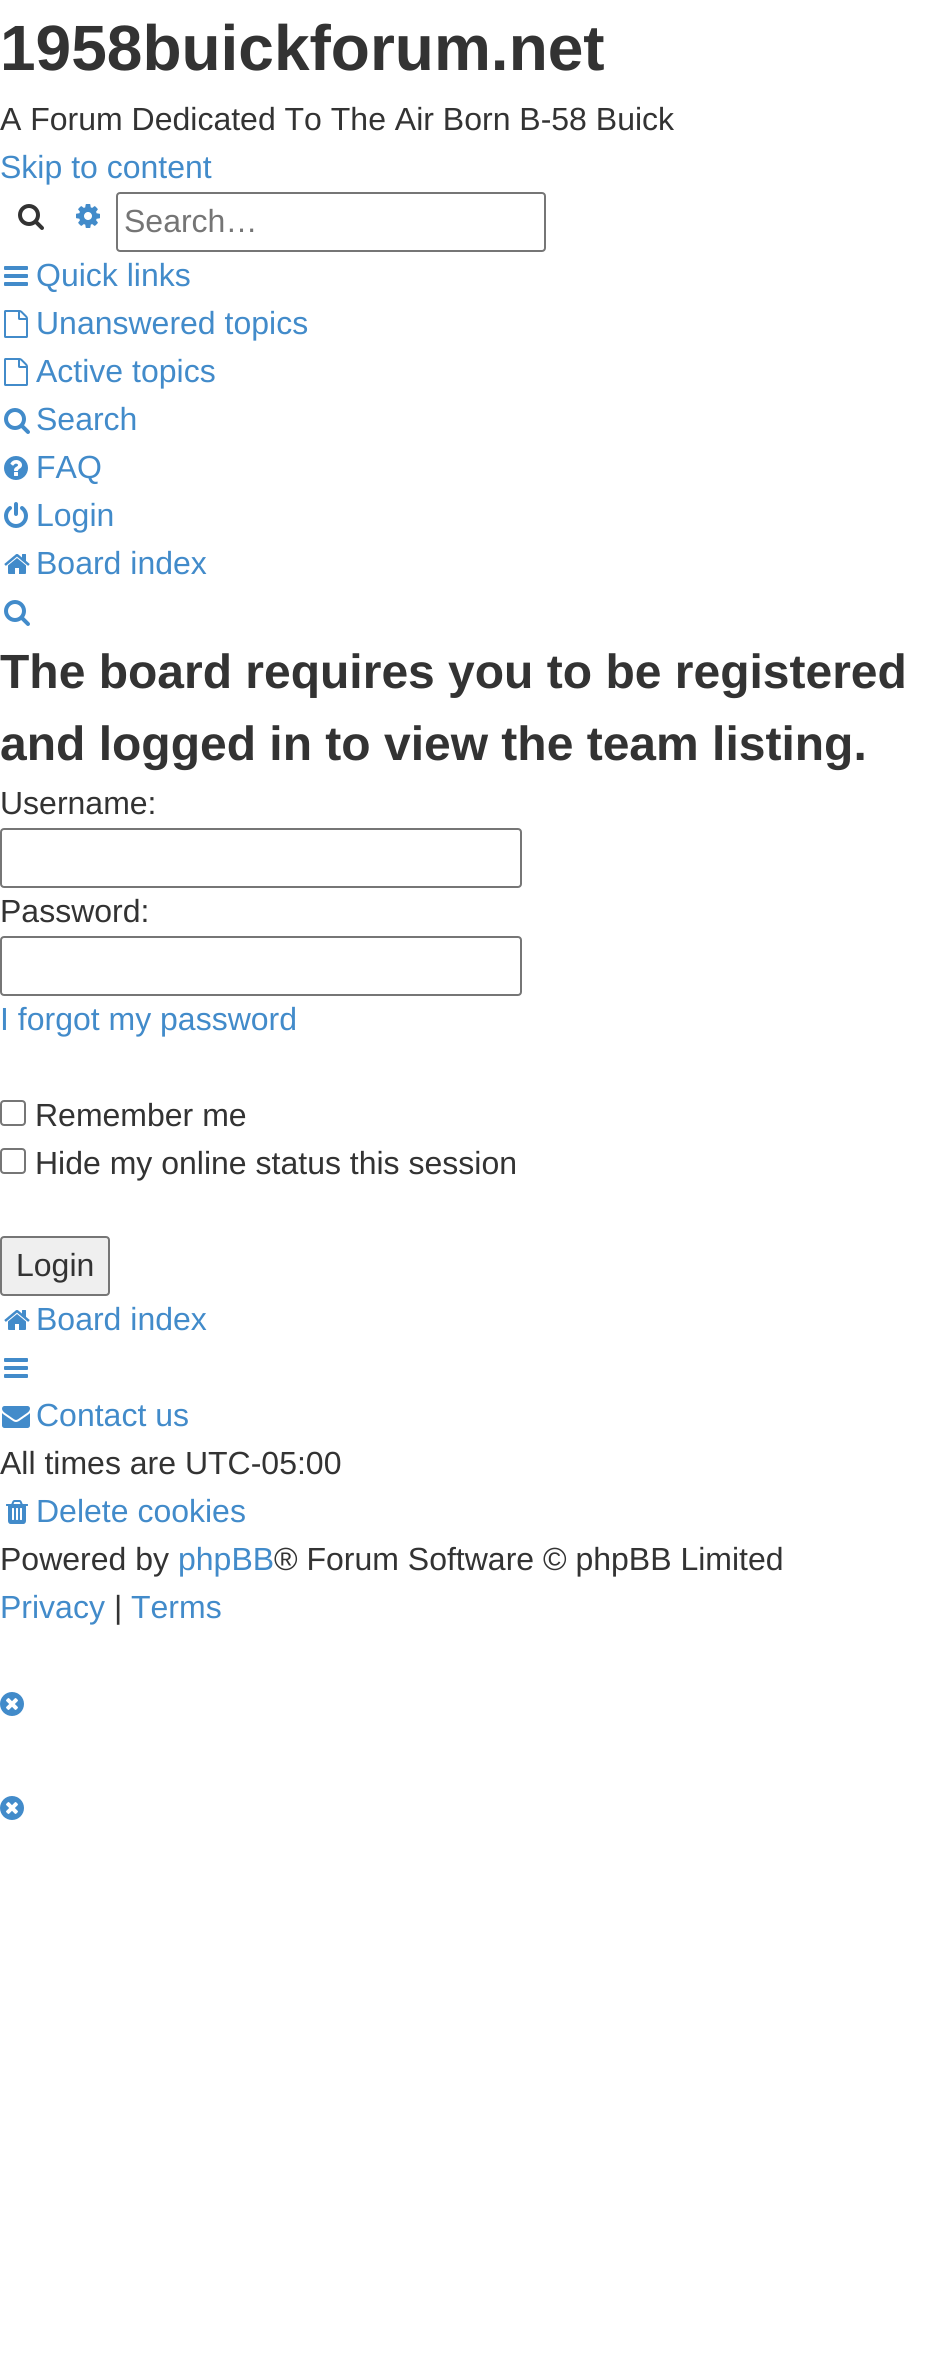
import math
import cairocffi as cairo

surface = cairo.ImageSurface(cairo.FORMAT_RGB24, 937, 2373)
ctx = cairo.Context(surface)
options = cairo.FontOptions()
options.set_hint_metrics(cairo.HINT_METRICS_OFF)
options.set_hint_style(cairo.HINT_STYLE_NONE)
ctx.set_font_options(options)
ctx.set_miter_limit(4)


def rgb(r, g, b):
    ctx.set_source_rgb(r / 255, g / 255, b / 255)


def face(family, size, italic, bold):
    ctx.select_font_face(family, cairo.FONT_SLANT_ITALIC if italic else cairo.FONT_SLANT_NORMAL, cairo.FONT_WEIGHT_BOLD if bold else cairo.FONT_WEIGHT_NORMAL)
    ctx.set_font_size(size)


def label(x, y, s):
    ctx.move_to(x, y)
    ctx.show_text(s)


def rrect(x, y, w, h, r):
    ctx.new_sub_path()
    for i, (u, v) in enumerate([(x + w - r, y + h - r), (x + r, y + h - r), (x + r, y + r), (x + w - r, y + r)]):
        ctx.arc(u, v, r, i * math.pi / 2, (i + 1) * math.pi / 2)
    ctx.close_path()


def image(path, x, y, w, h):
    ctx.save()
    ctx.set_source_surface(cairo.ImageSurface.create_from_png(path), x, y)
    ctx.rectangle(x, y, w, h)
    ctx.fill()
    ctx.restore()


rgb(255, 255, 255)
ctx.paint()
face('Liberation Sans', 64, 0, 1)
rgb(51, 51, 51)
label(0, 70, '1958buickforum.net')
face('Liberation Sans', 32, 0, 0)
label(0, 130, 'A Forum Dedicated To The Air Born B-58 Buick')
rgb(66, 139, 202)
label(0, 178, 'Skip to content')
image('image0.png', 18, 204, 26, 26)
image('image1.png', 76, 204, 24, 24)
rrect(117, 193, 428, 58, 3)
rgb(118, 118, 118)
ctx.stroke()
rgb(117, 117, 117)
label(124, 232, 'Search…')
image('image2.png', 4, 266, 24, 20)
rgb(66, 139, 202)
label(36, 286, 'Quick links')
image('image3.png', 4, 310, 24, 28)
label(36, 334, 'Unanswered topics')
image('image3.png', 4, 358, 24, 28)
label(36, 382, 'Active topics')
image('image4.png', 4, 408, 26, 26)
label(36, 430, 'Search')
image('image5.png', 4, 456, 24, 24)
label(36, 478, 'FAQ')
image('image6.png', 4, 502, 24, 26)
label(36, 526, 'Login')
image('image7.png', 4, 554, 26, 20)
label(36, 574, 'Board index')
image('image4.png', 4, 600, 26, 26)
face('Liberation Sans', 48, 0, 1)
rgb(51, 51, 51)
label(0, 688, 'The board requires you to be registered')
label(0, 760, 'and logged in to view the team listing.')
face('Liberation Sans', 32, 0, 0)
label(0, 814, 'Username:')
rrect(1, 829, 520, 58, 3)
rgb(118, 118, 118)
ctx.stroke()
rgb(51, 51, 51)
label(0, 922, 'Password:')
rrect(1, 937, 520, 58, 3)
rgb(118, 118, 118)
ctx.stroke()
rgb(66, 139, 202)
label(0, 1030, 'I forgot my password')
rrect(1, 1101, 24, 24, 3)
rgb(118, 118, 118)
ctx.stroke()
rgb(51, 51, 51)
label(35, 1126, 'Remember me')
rrect(1, 1149, 24, 24, 3)
rgb(118, 118, 118)
ctx.stroke()
rgb(51, 51, 51)
label(35, 1174, 'Hide my online status this session')
rgb(239, 239, 239)
rrect(1, 1237, 108, 58, 3)
ctx.fill_preserve()
rgb(118, 118, 118)
ctx.stroke()
rgb(51, 51, 51)
label(16, 1276, 'Login')
image('image7.png', 4, 1310, 26, 20)
rgb(66, 139, 202)
label(36, 1330, 'Board index')
image('image2.png', 4, 1358, 24, 20)
image('image8.png', 2, 1406, 28, 22)
label(36, 1426, 'Contact us')
rgb(51, 51, 51)
label(0, 1474, 'All times are UTC-05:00')
image('image9.png', 6, 1500, 22, 24)
rgb(66, 139, 202)
label(36, 1522, 'Delete cookies')
rgb(51, 51, 51)
label(0, 1570, 'Powered by')
rgb(66, 139, 202)
label(178, 1570, 'phpBB')
rgb(51, 51, 51)
label(274, 1570, '® Forum Software © phpBB Limited')
rgb(66, 139, 202)
label(0, 1618, 'Privacy')
rgb(51, 51, 51)
label(114, 1618, '|')
rgb(66, 139, 202)
label(131, 1618, 'Terms')
image('image10.png', 0, 1692, 24, 24)
image('image10.png', 0, 1796, 24, 24)
surface.write_to_png('render.png')
